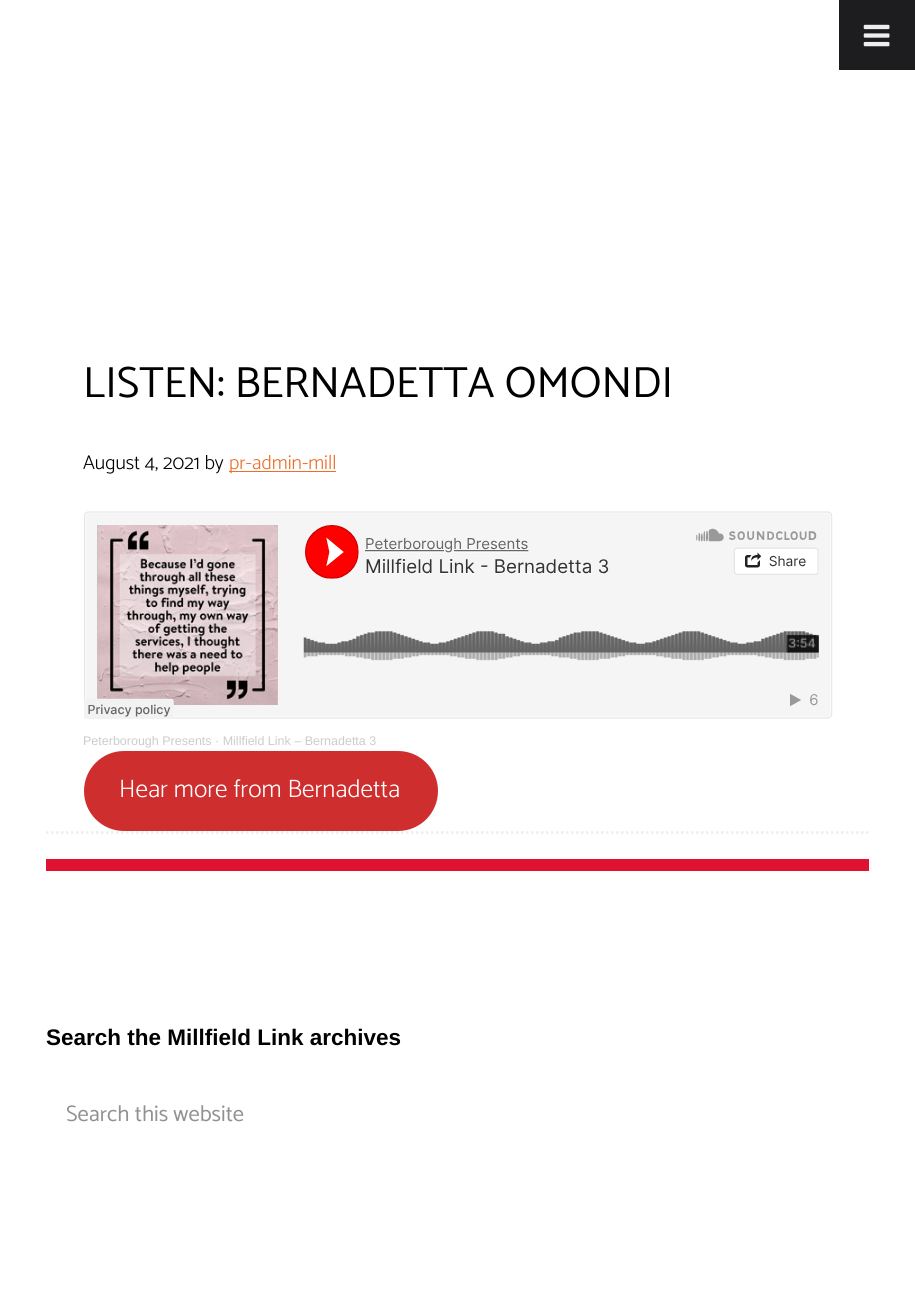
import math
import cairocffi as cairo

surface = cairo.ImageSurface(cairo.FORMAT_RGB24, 915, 1291)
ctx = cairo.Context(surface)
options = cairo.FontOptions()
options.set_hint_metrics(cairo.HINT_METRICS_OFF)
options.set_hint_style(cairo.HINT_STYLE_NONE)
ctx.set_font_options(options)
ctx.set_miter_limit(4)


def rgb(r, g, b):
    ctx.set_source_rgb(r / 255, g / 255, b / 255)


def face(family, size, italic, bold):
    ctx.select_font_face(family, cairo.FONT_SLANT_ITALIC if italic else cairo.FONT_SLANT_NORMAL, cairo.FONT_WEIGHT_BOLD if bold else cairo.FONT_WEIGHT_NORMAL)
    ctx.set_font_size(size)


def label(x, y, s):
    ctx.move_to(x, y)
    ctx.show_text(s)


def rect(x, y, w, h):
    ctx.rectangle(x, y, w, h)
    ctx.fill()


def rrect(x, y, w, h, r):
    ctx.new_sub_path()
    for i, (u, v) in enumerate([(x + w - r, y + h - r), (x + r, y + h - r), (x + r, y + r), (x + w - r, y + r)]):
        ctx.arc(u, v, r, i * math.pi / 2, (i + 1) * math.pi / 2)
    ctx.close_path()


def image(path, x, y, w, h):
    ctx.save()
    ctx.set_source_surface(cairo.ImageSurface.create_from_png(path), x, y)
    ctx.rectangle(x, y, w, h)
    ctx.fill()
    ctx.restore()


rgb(255, 255, 255)
ctx.paint()
rgb(29, 29, 32)
rect(839, 0, 76, 70)
image('image0.png', 863, 24, 27, 23)
face('Catamaran', 43.75, 0, 0)
rgb(0, 0, 0)
label(83, 397, 'LISTEN: BERNADETTA OMONDI')
face('Catamaran Light', 20, 0, 0)
label(83, 469, 'August 4, 2021 by')
rgb(237, 110, 44)
rect(229, 471, 107, 1)
label(229, 469, 'pr-admin-mill')
image('image1.png', 84, 511, 749, 208)
face('Liberation Sans', 12.5, 0, 0)
rgb(204, 204, 204)
label(83, 745, 'Peterborough Presents · Millfield Link – Bernadetta 3')
rgb(207, 46, 46)
rrect(84, 751, 354, 80, 40)
ctx.fill()
face('Catamaran Light', 25.25, 0, 0)
rgb(255, 255, 255)
label(119, 797, 'Hear more from Bernadetta')
ctx.new_path()
ctx.move_to(46, 832.5)
ctx.line_to(869, 832.5)
rgb(238, 238, 238)
ctx.set_line_width(2.5)
ctx.set_dash([2.5, 2.5])
ctx.stroke()
rgb(223, 18, 50)
rect(46, 859, 823, 12)
face('Liberation Sans', 22.5, 0, 1)
rgb(0, 0, 0)
label(46, 1045, 'Search the Millfield Link archives')
face('Catamaran', 22.5, 0, 0)
rgb(145, 145, 145)
label(66, 1121, 'Search this website')
surface.write_to_png('render.png')
